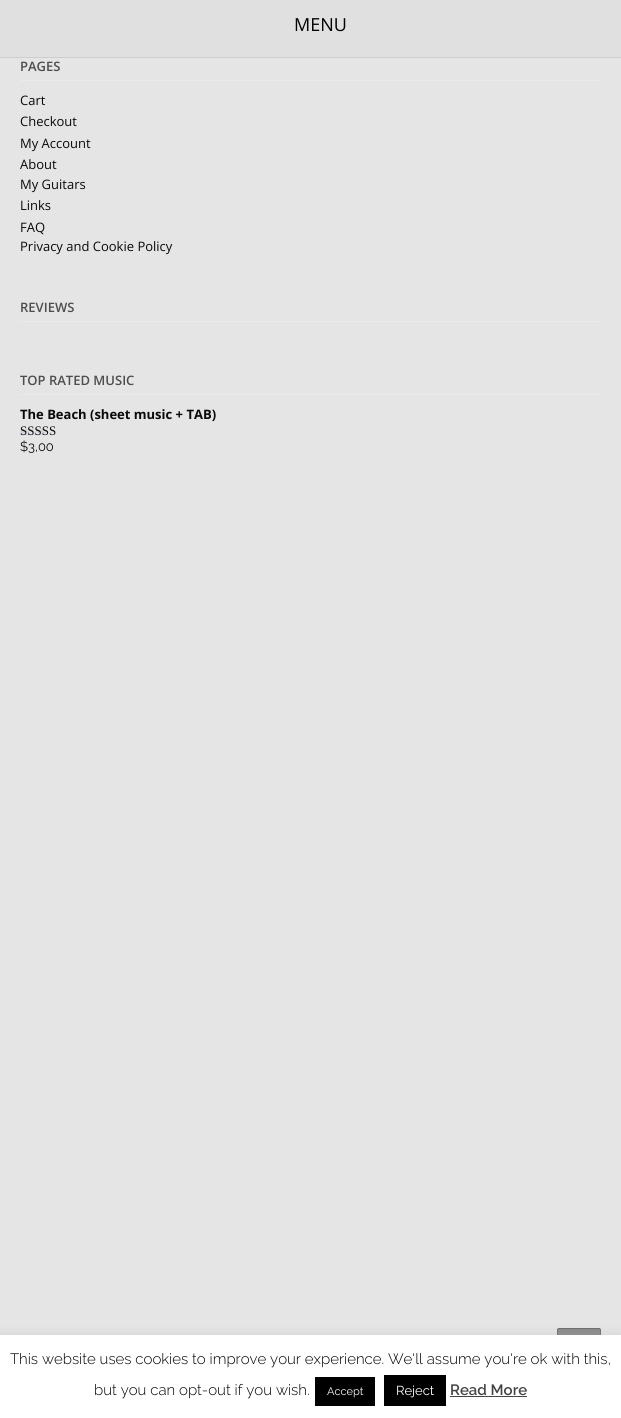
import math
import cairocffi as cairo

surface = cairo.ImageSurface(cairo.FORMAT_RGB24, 621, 1418)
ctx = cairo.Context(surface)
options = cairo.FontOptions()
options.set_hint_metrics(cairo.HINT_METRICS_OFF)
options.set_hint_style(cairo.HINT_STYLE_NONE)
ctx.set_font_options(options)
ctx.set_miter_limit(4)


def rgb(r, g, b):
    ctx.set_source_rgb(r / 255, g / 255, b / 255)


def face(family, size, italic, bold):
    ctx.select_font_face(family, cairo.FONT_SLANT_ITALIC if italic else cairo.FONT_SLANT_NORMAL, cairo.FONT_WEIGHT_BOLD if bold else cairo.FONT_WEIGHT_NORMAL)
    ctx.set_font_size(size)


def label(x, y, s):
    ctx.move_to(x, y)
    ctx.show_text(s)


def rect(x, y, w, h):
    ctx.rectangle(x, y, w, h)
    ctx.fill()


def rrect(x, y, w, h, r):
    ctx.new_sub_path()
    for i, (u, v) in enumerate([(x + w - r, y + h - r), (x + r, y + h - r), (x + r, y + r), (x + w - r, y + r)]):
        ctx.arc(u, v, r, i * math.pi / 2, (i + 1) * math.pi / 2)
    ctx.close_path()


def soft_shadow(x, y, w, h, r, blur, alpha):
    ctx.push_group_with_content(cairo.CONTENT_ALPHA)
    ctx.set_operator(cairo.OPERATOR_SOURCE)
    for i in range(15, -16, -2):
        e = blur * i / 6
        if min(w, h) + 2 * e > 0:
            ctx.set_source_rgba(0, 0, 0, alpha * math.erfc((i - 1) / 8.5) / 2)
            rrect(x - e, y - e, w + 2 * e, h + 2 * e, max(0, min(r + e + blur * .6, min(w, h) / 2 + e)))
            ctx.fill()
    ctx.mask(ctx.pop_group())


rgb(229, 229, 229)
ctx.paint()
rgb(224, 224, 224)
rect(0, 0, 621, 57)
rgb(206, 206, 206)
rect(0, 57, 621, 1)
face('Open Sans', 18, 0, 0)
rgb(0, 0, 0)
label(294, 31, 'MENU')
rgb(234, 234, 234)
rect(20, 80, 581, 1)
face('Open Sans SemiBold', 13, 0, 0)
rgb(77, 77, 77)
label(20, 71, 'PAGES')
face('Open Sans', 13, 0, 0)
rgb(10, 10, 10)
label(20, 105, 'Cart')
label(20, 126, 'Checkout')
label(20, 148, 'My Account')
label(20, 169, 'About')
label(20, 189, 'My Guitars')
label(20, 210, 'Links')
label(20, 232, 'FAQ')
label(20, 251, 'Privacy and Cookie Policy')
rgb(234, 234, 234)
rect(20, 321, 581, 1)
face('Open Sans SemiBold', 13, 0, 0)
rgb(77, 77, 77)
label(20, 312, 'REVIEWS')
rgb(234, 234, 234)
rect(20, 394, 581, 1)
rgb(77, 77, 77)
label(20, 385, 'TOP RATED MUSIC')
face('Open Sans', 13, 0, 1)
rgb(10, 10, 10)
label(20, 419, 'The Beach (sheet music + TAB)')
face('Liberation Serif', 13, 0, 0)
rgb(207, 200, 216)
label(20, 435, 'sssss')
rgb(10, 10, 10)
label(20, 435, 'SSSSS')
face('Raleway', 13, 0, 0)
label(20, 451, '$3,00')
rgb(137, 137, 137)
rrect(557, 1328, 44, 44, 2)
ctx.fill()
rrect(557.5, 1328.5, 43, 43, 1.5)
ctx.set_source_rgba(0, 0, 0, 0.2)
ctx.set_line_width(1)
ctx.stroke()
rgb(172, 171, 171)
soft_shadow(0, 1334, 621, 83, 0, 5, 0.3)
rgb(255, 255, 255)
rect(0, 1335, 621, 83)
face('Raleway Light', 15, 0, 0)
rgb(0, 0, 0)
label(10, 1364, 'This website uses cookies to improve your experience. We\'ll assume you\'re ok with this,')
label(94, 1395, 'but you can opt-out if you wish.')
rect(315, 1377, 60, 29)
face('Raleway', 11, 0, 0)
rgb(255, 255, 255)
label(327, 1395, 'Accept')
rgb(0, 0, 0)
rect(384, 1375, 62, 31)
face('Raleway', 13, 0, 0)
rgb(255, 255, 255)
label(396, 1395, 'Reject')
face('Raleway SemiBold', 15, 0, 0)
rgb(68, 68, 68)
label(450, 1395, 'Read More')
rect(450, 1396, 77, 1)
surface.write_to_png('render.png')
